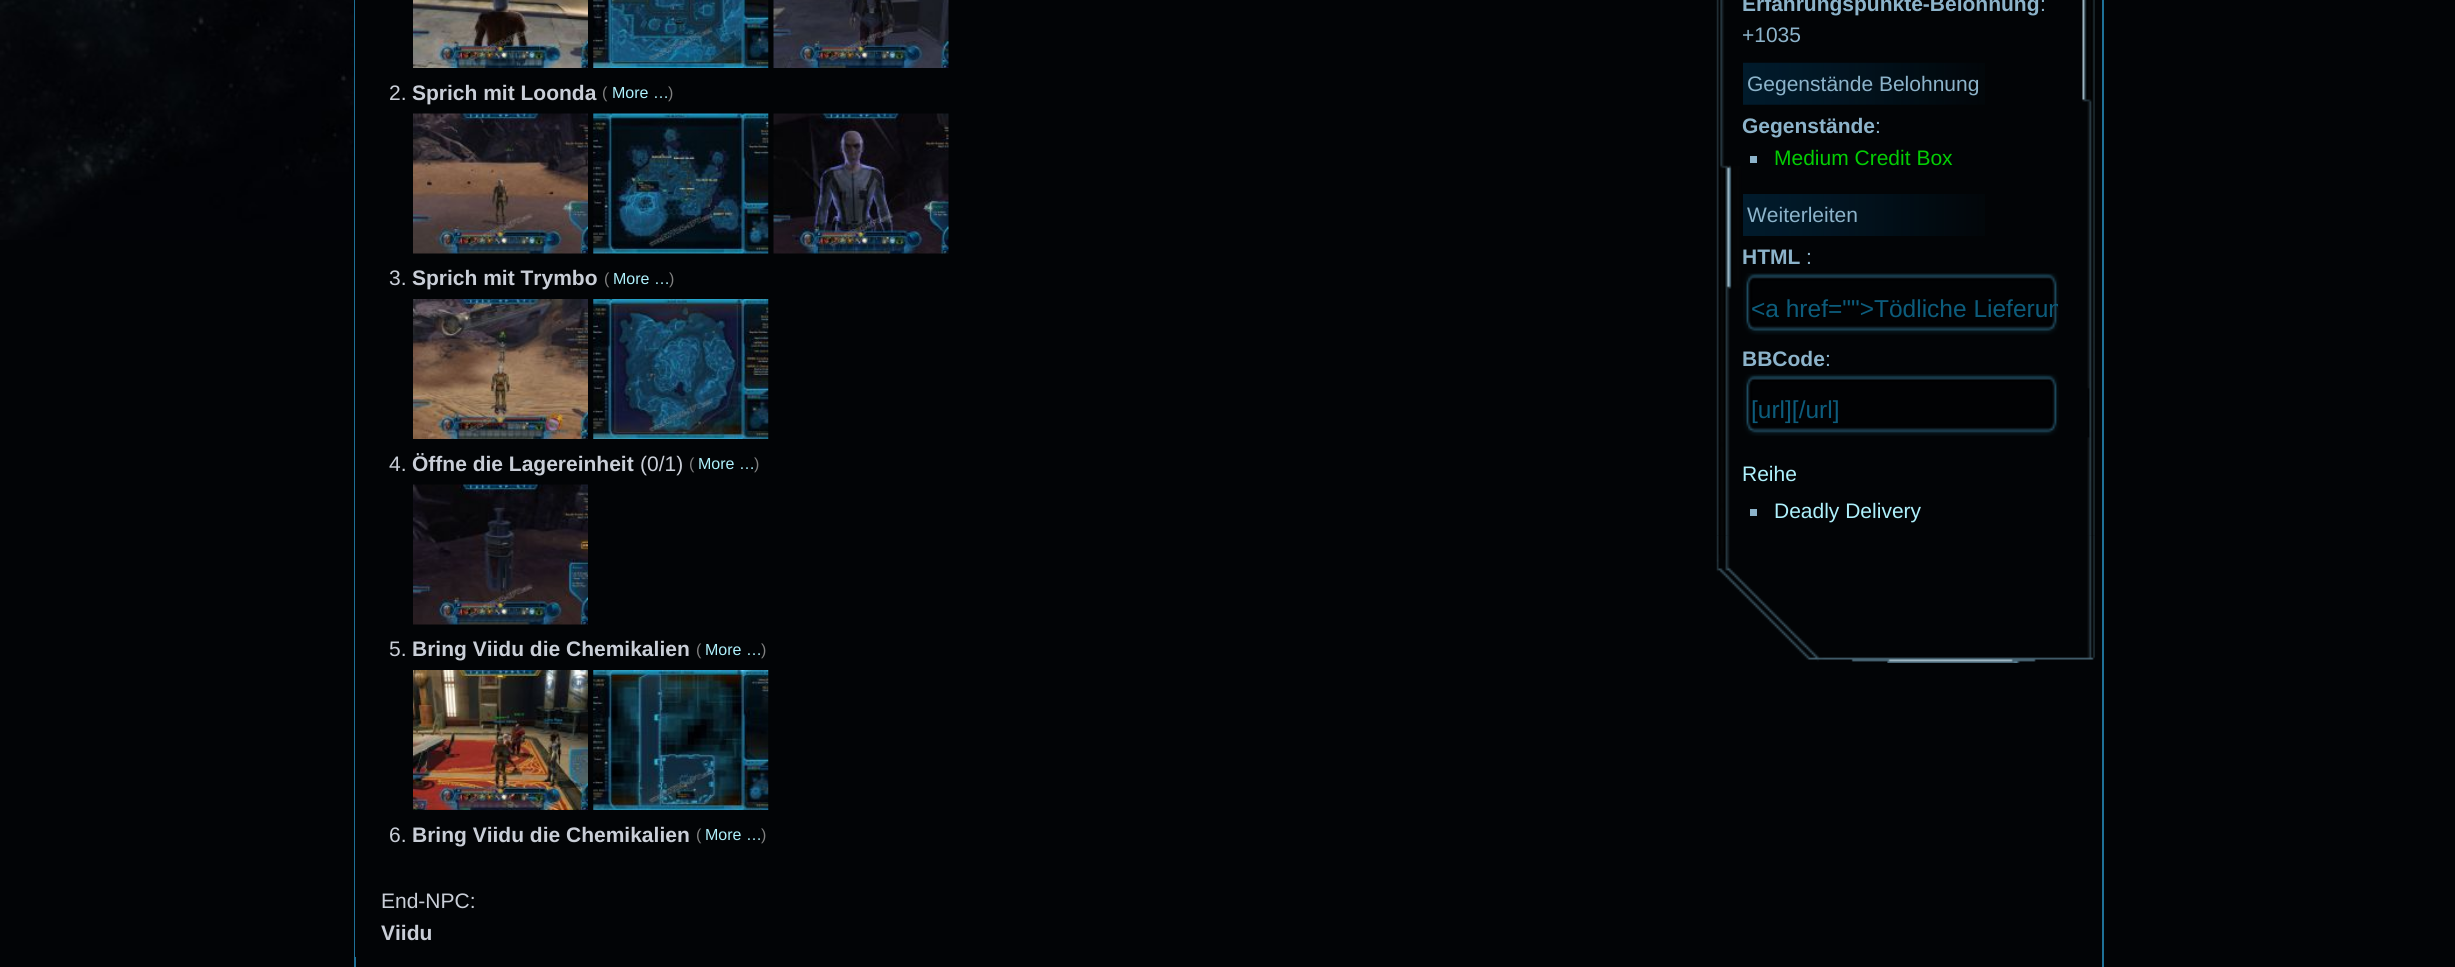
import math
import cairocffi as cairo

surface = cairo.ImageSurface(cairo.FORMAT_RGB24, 2455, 967)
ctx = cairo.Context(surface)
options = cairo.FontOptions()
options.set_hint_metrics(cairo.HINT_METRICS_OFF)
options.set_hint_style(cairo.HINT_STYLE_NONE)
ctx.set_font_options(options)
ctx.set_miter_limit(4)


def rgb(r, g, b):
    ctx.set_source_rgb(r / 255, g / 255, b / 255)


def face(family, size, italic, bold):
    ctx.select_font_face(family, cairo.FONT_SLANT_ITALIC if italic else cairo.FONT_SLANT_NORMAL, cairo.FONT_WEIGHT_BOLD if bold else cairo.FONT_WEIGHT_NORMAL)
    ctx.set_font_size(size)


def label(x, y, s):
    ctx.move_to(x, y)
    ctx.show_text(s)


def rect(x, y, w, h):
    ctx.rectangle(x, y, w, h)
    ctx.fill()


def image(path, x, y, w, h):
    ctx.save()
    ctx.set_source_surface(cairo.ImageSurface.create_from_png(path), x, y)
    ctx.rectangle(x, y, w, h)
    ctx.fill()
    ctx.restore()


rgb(2, 4, 6)
ctx.paint()
image('image0.png', 0, 0, 354, 240)
ctx.rectangle(355, -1, 1748, 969)
rgb(30, 112, 150)
ctx.stroke()
rgb(2, 4, 7)
rect(355, 0, 1, 957)
image('image1.png', 413, 0, 175, 68)
image('image2.png', 593, 0, 176, 68)
image('image3.png', 773, 0, 176, 68)
face('Liberation Sans', 21, 0, 0)
rgb(201, 206, 215)
label(389, 100, '2.')
face('Liberation Sans', 21, 0, 1)
label(412, 100, 'Sprich mit Loonda')
face('Liberation Sans', 16, 0, 0)
rgb(128, 128, 128)
label(602, 98, '(')
rgb(174, 241, 252)
label(612, 98, 'More …')
rgb(128, 128, 128)
label(668, 98, ')')
image('image4.png', 413, 113, 175, 141)
image('image5.png', 593, 113, 176, 141)
image('image6.png', 773, 113, 176, 141)
face('Liberation Sans', 21, 0, 0)
rgb(201, 206, 215)
label(389, 285, '3.')
face('Liberation Sans', 21, 0, 1)
label(412, 285, 'Sprich mit Trymbo')
face('Liberation Sans', 16, 0, 0)
rgb(128, 128, 128)
label(604, 284, '(')
rgb(174, 241, 252)
label(613, 284, 'More …')
rgb(128, 128, 128)
label(669, 284, ')')
image('image7.png', 413, 299, 175, 140)
image('image8.png', 593, 299, 176, 140)
face('Liberation Sans', 21, 0, 0)
rgb(201, 206, 215)
label(389, 471, '4.')
face('Liberation Sans', 21, 0, 1)
label(412, 471, 'Öffne die Lagereinheit')
face('Liberation Sans', 21, 0, 0)
label(640, 471, '(0/1)')
face('Liberation Sans', 16, 0, 0)
rgb(128, 128, 128)
label(689, 469, '(')
rgb(174, 241, 252)
label(698, 469, 'More …')
rgb(128, 128, 128)
label(754, 469, ')')
image('image9.png', 413, 484, 175, 141)
face('Liberation Sans', 21, 0, 0)
rgb(201, 206, 215)
label(389, 656, '5.')
face('Liberation Sans', 21, 0, 1)
label(412, 656, 'Bring Viidu die Chemikalien')
face('Liberation Sans', 16, 0, 0)
rgb(128, 128, 128)
label(696, 655, '(')
rgb(174, 241, 252)
label(705, 655, 'More …')
rgb(128, 128, 128)
label(761, 655, ')')
image('image10.png', 413, 670, 175, 140)
image('image11.png', 593, 670, 176, 140)
face('Liberation Sans', 21, 0, 0)
rgb(201, 206, 215)
label(389, 842, '6.')
face('Liberation Sans', 21, 0, 1)
label(412, 842, 'Bring Viidu die Chemikalien')
face('Liberation Sans', 16, 0, 0)
rgb(128, 128, 128)
label(696, 840, '(')
rgb(174, 241, 252)
label(705, 840, 'More …')
rgb(128, 128, 128)
label(761, 840, ')')
face('Liberation Sans', 21, 0, 0)
rgb(201, 206, 215)
label(381, 908, 'End-NPC:')
face('Liberation Sans', 21, 0, 1)
label(381, 940, 'Viidu')
image('image12.png', 1716, 0, 379, 536)
rgb(140, 179, 202)
label(1742, 11, 'Erfahrungspunkte-Belohnung')
face('Liberation Sans', 21, 0, 0)
label(2040, 11, ':')
label(1742, 42, '+1035')
image('image13.png', 1743, 62, 242, 43)
label(1747, 91, 'Gegenstände Belohnung')
face('Liberation Sans', 21, 0, 1)
label(1742, 133, 'Gegenstände')
face('Liberation Sans', 21, 0, 0)
label(1875, 133, ':')
rect(1750, 156, 7, 7)
rgb(3, 205, 3)
label(1774, 165, 'Medium Credit Box')
image('image14.png', 1743, 194, 242, 42)
rgb(140, 179, 202)
label(1747, 222, 'Weiterleiten')
face('Liberation Sans', 21, 0, 1)
label(1742, 264, 'HTML')
face('Liberation Sans', 21, 0, 0)
label(1806, 264, ':')
image('image15.png', 1743, 273, 316, 62)
ctx.save()
ctx.rectangle(1752, 294, 306, 28)
ctx.clip()
face('Liberation Sans', 24.5, 0, 0)
rgb(12, 92, 124)
label(1751, 317, '<a href="">Tödliche Lieferun')
ctx.restore()
face('Liberation Sans', 21, 0, 1)
label(1742, 366, 'BBCode')
face('Liberation Sans', 21, 0, 0)
label(1825, 366, ':')
image('image16.png', 1743, 374, 316, 62)
face('Liberation Sans', 24.5, 0, 0)
rgb(12, 92, 124)
label(1751, 418, '[url][/url]')
face('Liberation Sans', 21, 0, 0)
rgb(174, 241, 252)
label(1742, 481, 'Reihe')
rgb(140, 179, 202)
rect(1750, 509, 7, 7)
rgb(174, 241, 252)
label(1774, 518, 'Deadly Delivery')
image('image17.png', 1716, 535, 379, 128)
surface.write_to_png('render.png')
